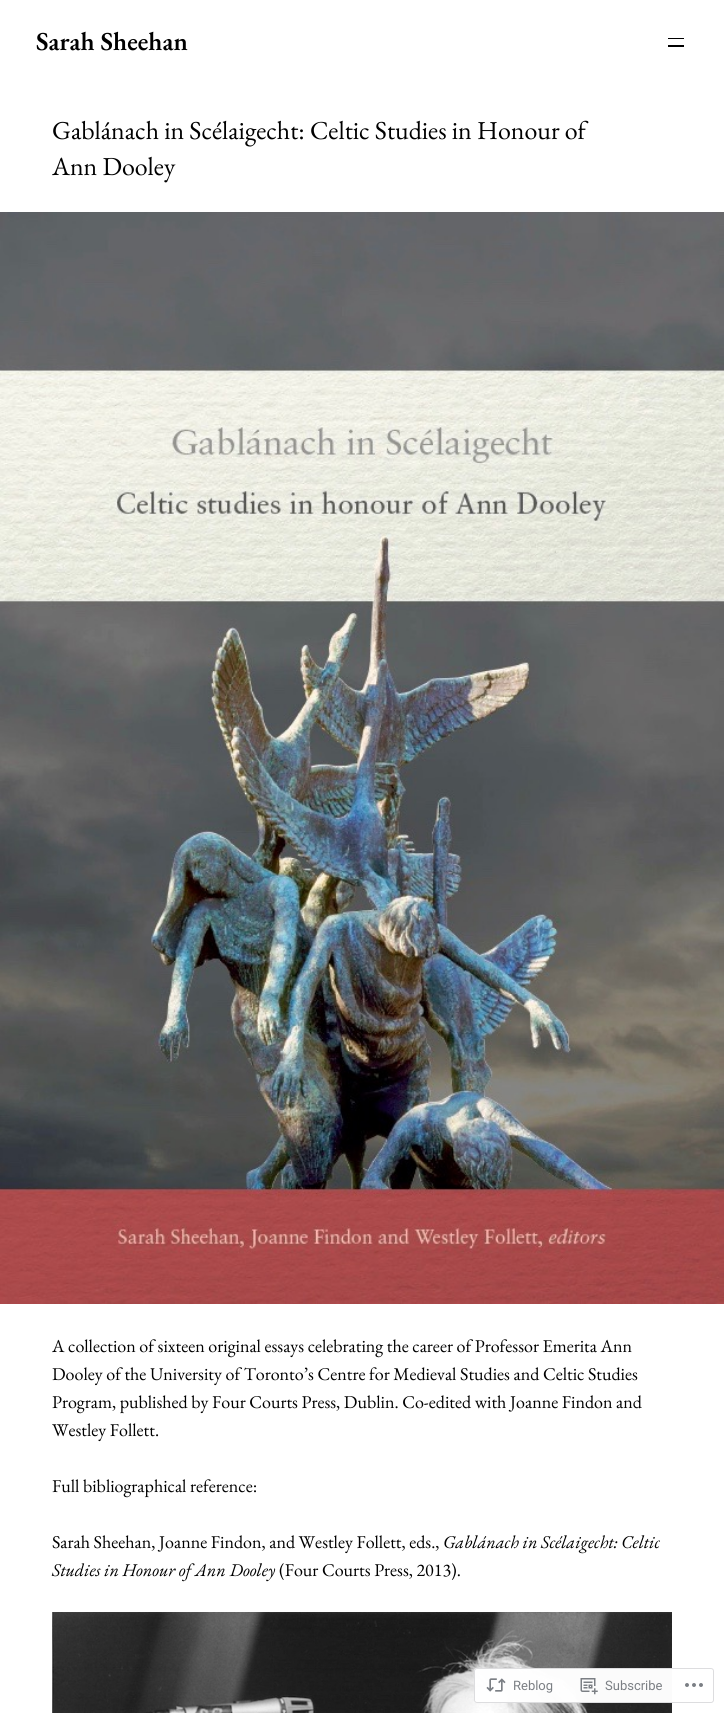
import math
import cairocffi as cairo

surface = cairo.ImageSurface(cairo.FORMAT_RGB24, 724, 1713)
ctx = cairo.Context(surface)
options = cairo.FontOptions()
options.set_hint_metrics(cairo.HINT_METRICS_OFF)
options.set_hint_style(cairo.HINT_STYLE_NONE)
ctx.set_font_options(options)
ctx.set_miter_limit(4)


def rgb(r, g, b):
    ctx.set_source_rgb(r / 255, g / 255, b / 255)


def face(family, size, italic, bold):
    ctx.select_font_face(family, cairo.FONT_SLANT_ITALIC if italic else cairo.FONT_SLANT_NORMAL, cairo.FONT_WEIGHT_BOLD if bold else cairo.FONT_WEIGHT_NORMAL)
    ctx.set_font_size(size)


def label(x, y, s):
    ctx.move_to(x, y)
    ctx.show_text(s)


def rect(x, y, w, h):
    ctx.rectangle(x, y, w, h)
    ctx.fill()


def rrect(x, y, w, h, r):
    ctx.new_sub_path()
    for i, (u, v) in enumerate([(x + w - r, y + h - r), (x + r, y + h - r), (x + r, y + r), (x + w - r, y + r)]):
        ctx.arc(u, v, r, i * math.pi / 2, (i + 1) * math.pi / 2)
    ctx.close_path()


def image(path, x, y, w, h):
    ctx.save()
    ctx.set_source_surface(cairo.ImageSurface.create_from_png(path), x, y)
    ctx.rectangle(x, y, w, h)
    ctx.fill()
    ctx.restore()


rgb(255, 255, 255)
ctx.paint()
face('EB Garamond SemiBold', 25.9, 0, 0)
rgb(0, 0, 0)
label(36, 50, 'Sarah Sheehan')
rect(668, 38, 16, 1)
rect(668, 45, 16, 2)
face('EB Garamond', 25.9, 0, 0)
label(52, 139, 'Gablánach in Scélaigecht: Celtic Studies in Honour of')
label(52, 175, 'Ann Dooley')
image('image0.png', 0, 212, 724, 1092)
face('EB Garamond', 18, 0, 0)
label(52, 1352, 'A collection of sixteen original essays celebrating the career of Professor Emerita Ann')
label(52, 1380, 'Dooley of the University of Toronto’s Centre for Medieval Studies and Celtic Studies')
label(52, 1408, 'Program, published by Four Courts Press, Dublin. Co-edited with Joanne Findon and')
label(52, 1436, 'Westley Follett.')
label(52, 1492, 'Full bibliographical reference:')
label(52, 1548, 'Sarah Sheehan, Joanne Findon, and Westley Follett, eds.,')
face('EB Garamond', 18, 1, 0)
label(443, 1548, 'Gablánach in Scélaigecht: Celtic')
label(52, 1576, 'Studies in Honour of Ann Dooley')
face('EB Garamond', 18, 0, 0)
label(279, 1576, '(Four Courts Press, 2013).')
image('image1.png', 52, 1612, 620, 101)
ctx.set_source_rgba(1, 1, 1, 0.98)
rrect(474, 1668, 240, 35, 3)
ctx.fill()
rrect(474.5, 1668.5, 239, 34, 2.5)
ctx.set_source_rgba(0.863, 0.863, 0.871, 0.98)
ctx.set_line_width(1)
ctx.stroke()
image('image2.png', 486, 1678, 20, 14)
face('Roboto', 13, 0, 0)
rgb(123, 127, 132)
label(513, 1690, 'Reblog')
image('image3.png', 580, 1678, 18, 17)
label(605, 1690, 'Subscribe')
image('image4.png', 685, 1683, 18, 4)
surface.write_to_png('render.png')
